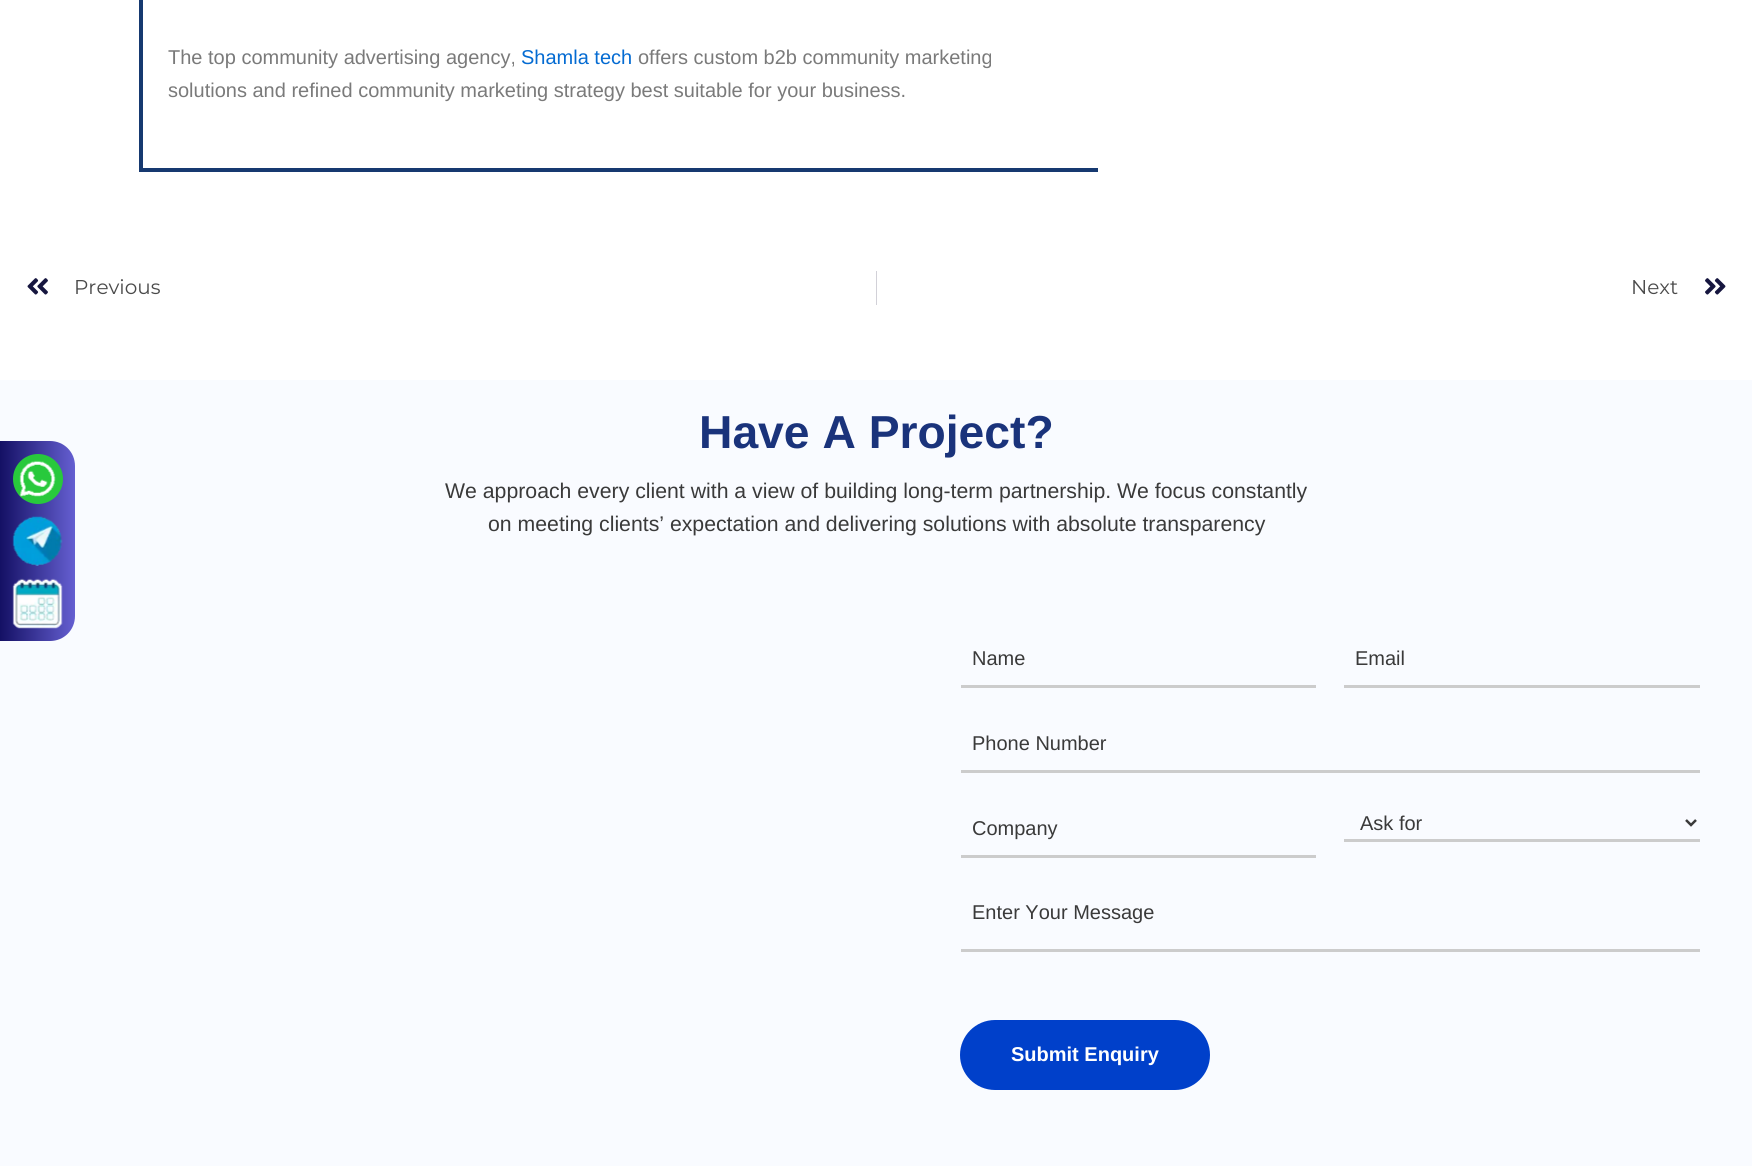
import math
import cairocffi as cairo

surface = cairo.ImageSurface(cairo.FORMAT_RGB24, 1752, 1166)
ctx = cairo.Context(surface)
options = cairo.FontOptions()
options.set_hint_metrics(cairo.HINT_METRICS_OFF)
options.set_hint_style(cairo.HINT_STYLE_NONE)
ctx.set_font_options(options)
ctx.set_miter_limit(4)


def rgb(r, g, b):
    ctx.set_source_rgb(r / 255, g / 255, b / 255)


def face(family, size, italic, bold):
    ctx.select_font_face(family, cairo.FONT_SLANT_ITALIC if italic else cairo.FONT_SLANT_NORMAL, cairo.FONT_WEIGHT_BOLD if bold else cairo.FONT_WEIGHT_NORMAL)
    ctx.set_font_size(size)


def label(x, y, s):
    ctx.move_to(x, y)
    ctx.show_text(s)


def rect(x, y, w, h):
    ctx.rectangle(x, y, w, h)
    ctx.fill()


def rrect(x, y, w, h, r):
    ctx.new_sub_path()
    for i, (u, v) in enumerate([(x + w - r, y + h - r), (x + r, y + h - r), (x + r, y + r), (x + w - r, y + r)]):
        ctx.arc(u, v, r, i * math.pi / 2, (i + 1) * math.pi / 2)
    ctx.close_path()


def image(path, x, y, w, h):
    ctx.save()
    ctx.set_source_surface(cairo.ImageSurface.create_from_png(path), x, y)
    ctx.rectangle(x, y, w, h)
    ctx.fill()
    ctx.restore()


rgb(255, 255, 255)
ctx.paint()
rgb(22, 57, 112)
rect(139, 168, 959, 4)
rect(139, 0, 4, 171)
face('Liberation Sans', 20, 0, 0)
rgb(122, 122, 122)
label(168, 64, 'The top community advertising agency,')
rgb(4, 107, 210)
label(521, 64, 'Shamla tech')
rgb(122, 122, 122)
label(638, 64, 'offers custom b2b community marketing')
label(168, 97, 'solutions and refined community marketing strategy best suitable for your business.')
image('image0.png', 27, 278, 21, 17)
face('Montserrat', 20, 0, 0)
rgb(74, 74, 74)
label(74, 294, 'Previous')
rgb(210, 209, 216)
rect(876, 271, 1, 34)
rgb(74, 74, 74)
label(1631, 294, 'Next')
image('image1.png', 1705, 278, 21, 17)
rgb(249, 251, 255)
rect(0, 380, 1752, 786)
gradient = cairo.LinearGradient(0, 541, 75, 541)
gradient.add_color_stop_rgba(0, 0.078, 0.063, 0.392, 1)
gradient.add_color_stop_rgba(1, 0.396, 0.373, 0.82, 1)
ctx.set_source(gradient)
ctx.new_path()
ctx.move_to(0, 441)
ctx.line_to(50, 441)
ctx.curve_to(64, 441, 75, 452, 75, 466)
ctx.line_to(75, 616)
ctx.curve_to(75, 630, 64, 641, 50, 641)
ctx.line_to(0, 641)
ctx.close_path()
ctx.fill()
rgb(40, 201, 60)
ctx.arc(38, 479, 25, 0, 2 * math.pi)
ctx.fill()
image('image2.png', 19, 460, 37, 37)
image('image3.png', 12, 516, 51, 50)
image('image4.png', 12, 578, 51, 51)
face('Liberation Sans', 46.25, 0, 1)
rgb(26, 51, 123)
label(699, 448, 'Have A Project?')
face('Liberation Sans', 21.25, 0, 0)
rgb(58, 58, 58)
label(445, 498, 'We approach every client with a view of building long-term partnership. We focus constantly')
label(488, 531, 'on meeting clients’ expectation and delivering solutions with absolute transparency')
rgb(204, 204, 204)
rect(961, 685, 355, 3)
face('Liberation Sans', 20, 0, 0)
rgb(58, 58, 58)
label(972, 665, 'Name')
rgb(204, 204, 204)
rect(1344, 685, 356, 3)
rgb(58, 58, 58)
label(1355, 665, 'Email')
rgb(204, 204, 204)
rect(961, 770, 739, 3)
rgb(58, 58, 58)
label(972, 750, 'Phone Number')
rgb(204, 204, 204)
rect(961, 855, 355, 3)
rgb(58, 58, 58)
label(972, 835, 'Company')
rgb(204, 204, 204)
rect(1344, 839, 356, 3)
ctx.new_path()
ctx.move_to(1686, 820)
ctx.line_to(1691, 825)
ctx.line_to(1696, 820)
rgb(58, 58, 58)
ctx.set_line_width(2.5)
ctx.stroke()
label(1360, 830, 'Ask for')
rgb(204, 204, 204)
rect(961, 949, 739, 3)
rgb(58, 58, 58)
label(972, 919, 'Enter Your Message')
rgb(0, 64, 202)
rrect(960, 1020, 250, 70, 35)
ctx.fill()
face('Liberation Sans', 20, 0, 1)
rgb(255, 255, 255)
label(1011, 1061, 'Submit Enquiry')
surface.write_to_png('render.png')
